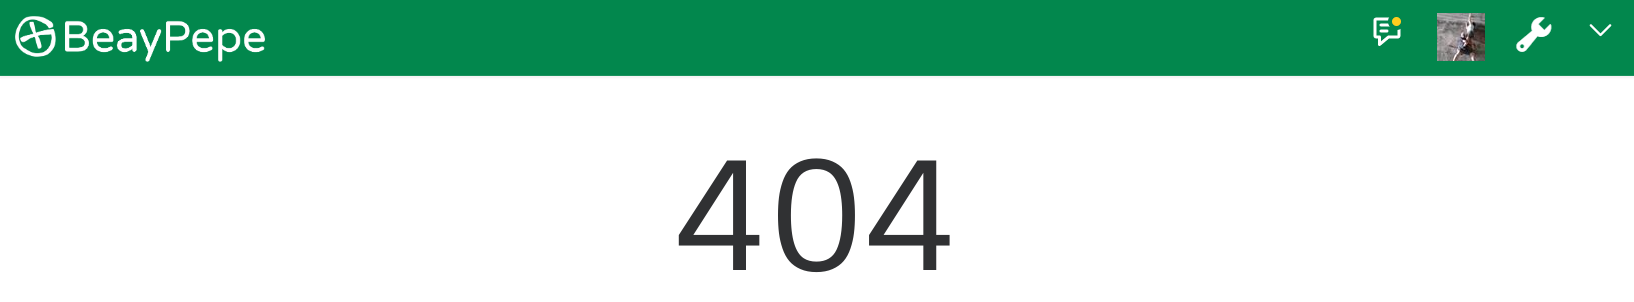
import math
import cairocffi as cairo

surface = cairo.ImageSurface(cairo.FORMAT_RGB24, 1634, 302)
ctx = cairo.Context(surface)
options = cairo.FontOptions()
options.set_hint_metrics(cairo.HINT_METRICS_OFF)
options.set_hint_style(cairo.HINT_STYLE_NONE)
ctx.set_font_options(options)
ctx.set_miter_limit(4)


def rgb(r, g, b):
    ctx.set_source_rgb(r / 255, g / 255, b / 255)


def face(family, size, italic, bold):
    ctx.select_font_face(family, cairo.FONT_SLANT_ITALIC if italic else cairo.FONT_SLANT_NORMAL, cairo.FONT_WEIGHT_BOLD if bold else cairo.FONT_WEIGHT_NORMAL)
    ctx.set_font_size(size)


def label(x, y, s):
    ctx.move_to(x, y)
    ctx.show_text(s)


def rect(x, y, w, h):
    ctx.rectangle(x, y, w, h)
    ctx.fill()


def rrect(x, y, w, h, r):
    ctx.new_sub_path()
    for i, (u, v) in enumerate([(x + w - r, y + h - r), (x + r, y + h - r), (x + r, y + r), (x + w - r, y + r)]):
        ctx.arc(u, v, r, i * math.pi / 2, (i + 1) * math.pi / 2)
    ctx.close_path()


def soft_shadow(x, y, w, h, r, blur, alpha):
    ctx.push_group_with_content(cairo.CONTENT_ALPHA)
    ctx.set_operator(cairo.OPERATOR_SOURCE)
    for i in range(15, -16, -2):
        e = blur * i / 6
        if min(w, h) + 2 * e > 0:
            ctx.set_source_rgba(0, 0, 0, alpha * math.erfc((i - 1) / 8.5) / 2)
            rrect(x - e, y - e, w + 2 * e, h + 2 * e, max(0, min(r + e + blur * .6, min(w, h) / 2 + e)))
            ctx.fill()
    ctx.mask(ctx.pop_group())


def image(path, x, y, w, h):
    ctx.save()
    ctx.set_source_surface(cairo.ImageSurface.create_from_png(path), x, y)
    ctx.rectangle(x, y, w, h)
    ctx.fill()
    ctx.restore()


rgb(255, 255, 255)
ctx.paint()
rgb(102, 102, 102)
soft_shadow(0, 2, 1634, 76, 0, 1, 0.08)
rgb(2, 135, 77)
rect(0, 0, 1634, 75)
rgb(25, 146, 93)
rect(0, 75, 1634, 1)
image('image0.png', 15, 16, 250, 46)
image('image1.png', 1373, 17, 28, 29)
image('image2.png', 1437, 13, 48, 48)
image('image3.png', 1516, 17, 36, 35)
image('image4.png', 1589, 24, 23, 13)
face('Sintony', 150, 0, 0)
rgb(48, 49, 51)
label(674, 270, '404')
surface.write_to_png('render.png')
